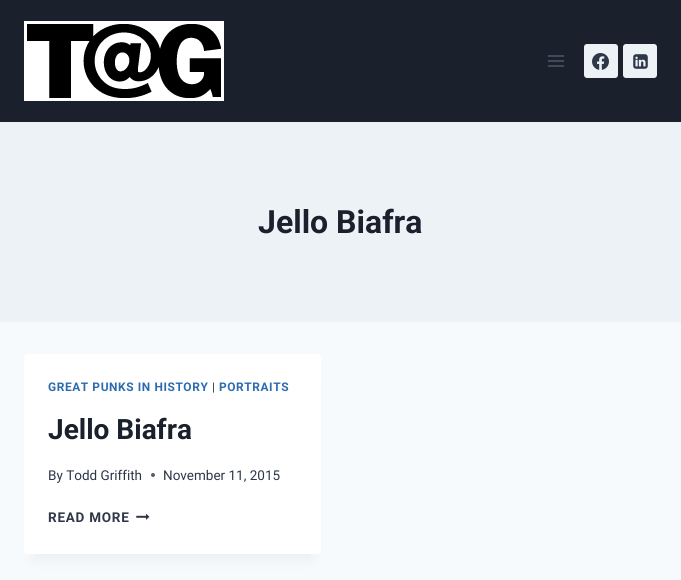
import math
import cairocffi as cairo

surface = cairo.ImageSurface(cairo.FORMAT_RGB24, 681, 580)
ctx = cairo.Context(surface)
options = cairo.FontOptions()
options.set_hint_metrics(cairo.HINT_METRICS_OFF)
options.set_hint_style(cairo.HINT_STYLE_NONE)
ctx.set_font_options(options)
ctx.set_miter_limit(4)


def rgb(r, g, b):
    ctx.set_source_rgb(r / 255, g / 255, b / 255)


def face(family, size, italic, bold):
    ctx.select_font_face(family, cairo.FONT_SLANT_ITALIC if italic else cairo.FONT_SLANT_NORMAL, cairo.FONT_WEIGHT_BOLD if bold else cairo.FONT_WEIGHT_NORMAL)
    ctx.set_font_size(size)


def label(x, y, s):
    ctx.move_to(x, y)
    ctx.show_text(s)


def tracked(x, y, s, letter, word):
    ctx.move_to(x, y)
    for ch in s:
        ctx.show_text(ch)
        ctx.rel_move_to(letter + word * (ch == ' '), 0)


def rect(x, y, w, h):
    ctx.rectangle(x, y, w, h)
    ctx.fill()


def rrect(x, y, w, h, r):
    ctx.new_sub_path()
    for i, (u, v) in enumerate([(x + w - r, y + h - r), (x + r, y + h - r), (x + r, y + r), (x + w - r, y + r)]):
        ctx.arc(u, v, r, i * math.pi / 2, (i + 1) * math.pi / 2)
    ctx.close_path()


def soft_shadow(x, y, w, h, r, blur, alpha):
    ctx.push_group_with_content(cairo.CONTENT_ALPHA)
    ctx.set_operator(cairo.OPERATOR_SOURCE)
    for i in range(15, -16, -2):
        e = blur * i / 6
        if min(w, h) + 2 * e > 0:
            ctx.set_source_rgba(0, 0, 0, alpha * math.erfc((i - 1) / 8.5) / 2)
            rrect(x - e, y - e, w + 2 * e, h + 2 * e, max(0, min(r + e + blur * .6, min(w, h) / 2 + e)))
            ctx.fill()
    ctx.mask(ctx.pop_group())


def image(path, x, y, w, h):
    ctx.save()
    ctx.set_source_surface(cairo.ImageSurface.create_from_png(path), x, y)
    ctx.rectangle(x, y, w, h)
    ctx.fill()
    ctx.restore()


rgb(247, 250, 252)
ctx.paint()
rgb(26, 32, 44)
rect(0, 0, 681, 122)
image('image0.png', 24, 21, 200, 80)
image('image1.png', 547, 55, 18, 12)
rgb(237, 242, 247)
rrect(584, 44, 34, 34, 3)
ctx.fill()
image('image2.png', 592, 53, 17, 17)
rrect(623, 44, 34, 34, 3)
ctx.fill()
image('image3.png', 633, 54, 15, 15)
rect(0, 122, 681, 200)
face('Roboto', 32, 0, 1)
rgb(26, 32, 44)
label(258, 233, 'Jello Biafra')
rgb(0, 0, 0)
soft_shadow(34, 379, 277, 180, 0, 7.5, 0.05)
rgb(255, 255, 255)
rrect(24, 354, 297, 200, 4)
ctx.fill()
face('Roboto', 11.9, 0, 1)
rgb(43, 108, 176)
tracked(48, 391, 'GREAT PUNKS IN HISTORY', 0.6, 0)
face('Roboto', 11.9, 0, 0)
rgb(45, 55, 72)
tracked(212, 391, '|', 0.6, 0)
face('Roboto', 11.9, 0, 1)
rgb(43, 108, 176)
tracked(219, 391, 'PORTRAITS', 0.6, 0)
face('Roboto', 28, 0, 1)
rgb(26, 32, 44)
label(48, 439, 'Jello Biafra')
face('Roboto', 13.5, 0, 0)
rgb(45, 55, 72)
label(48, 480, 'By Todd Griffith')
rgb(87, 95, 109)
ctx.new_path()
ctx.arc(153, 475, 2, 0, 2 * math.pi)
ctx.fill()
rgb(45, 55, 72)
label(163, 480, 'November 11, 2015')
face('Roboto', 13.5, 0, 1)
tracked(48, 522, 'READ MORE', 0.75, 0)
image('image4.png', 136, 513, 14, 7)
surface.write_to_png('render.png')
